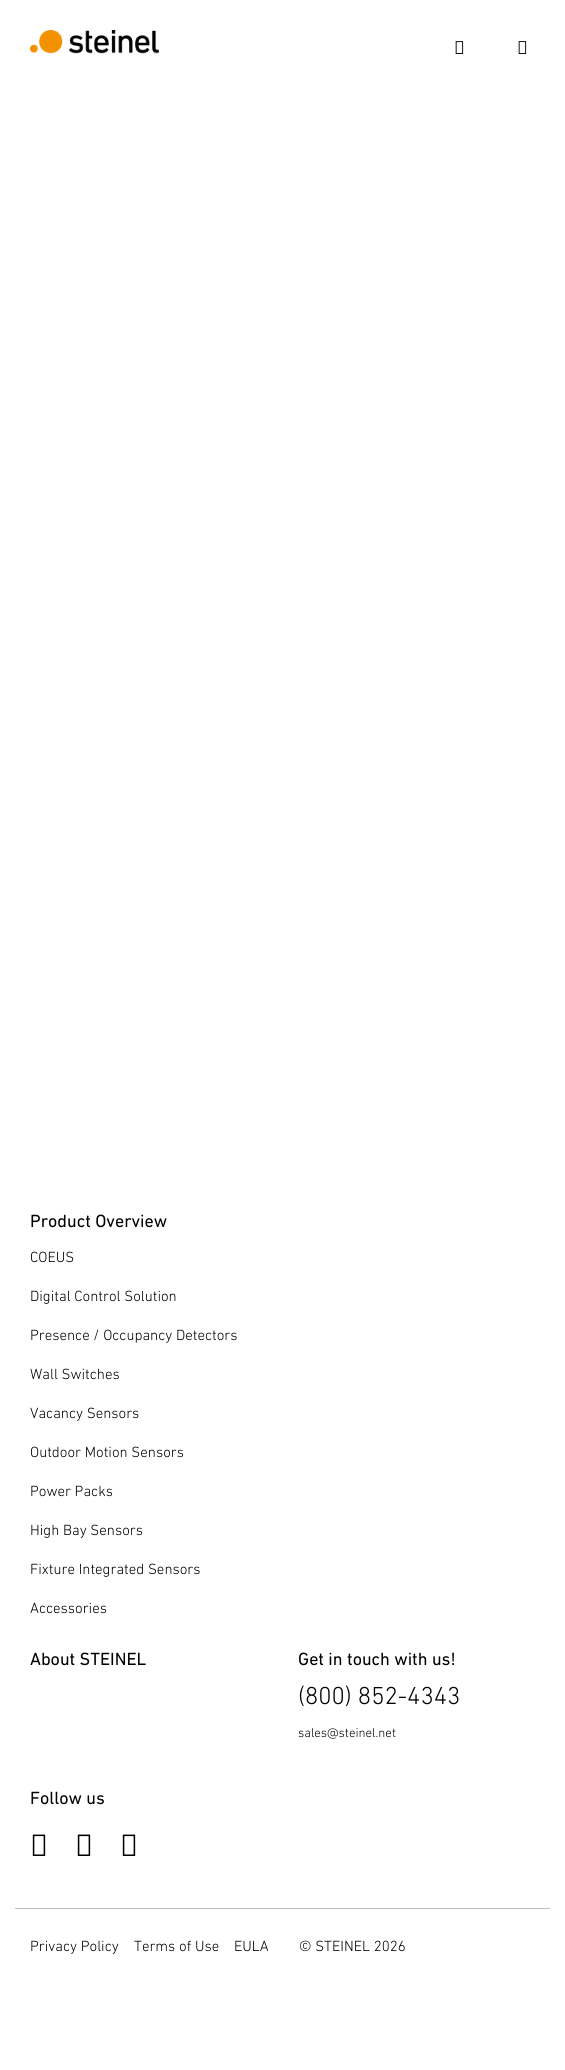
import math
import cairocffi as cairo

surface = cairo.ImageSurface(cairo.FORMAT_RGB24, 565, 2070)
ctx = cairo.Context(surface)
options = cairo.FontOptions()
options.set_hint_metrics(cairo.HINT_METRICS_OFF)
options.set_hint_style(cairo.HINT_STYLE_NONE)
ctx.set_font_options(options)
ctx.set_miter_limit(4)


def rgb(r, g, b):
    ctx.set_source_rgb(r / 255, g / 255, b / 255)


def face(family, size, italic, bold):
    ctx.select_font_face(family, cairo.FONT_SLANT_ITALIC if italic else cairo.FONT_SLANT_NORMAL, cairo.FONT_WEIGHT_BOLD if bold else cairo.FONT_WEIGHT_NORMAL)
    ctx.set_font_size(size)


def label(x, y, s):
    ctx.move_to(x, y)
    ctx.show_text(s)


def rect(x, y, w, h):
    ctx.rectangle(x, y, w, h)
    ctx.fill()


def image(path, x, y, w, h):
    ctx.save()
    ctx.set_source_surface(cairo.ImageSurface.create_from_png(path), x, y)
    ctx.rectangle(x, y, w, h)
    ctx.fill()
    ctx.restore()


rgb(255, 255, 255)
ctx.paint()
image('image0.png', 30, 30, 129, 24)
image('image1.png', 455, 41, 9, 13)
image('image1.png', 518, 41, 9, 13)
face('DIN Next', 18, 0, 0)
rgb(0, 0, 0)
label(30, 1227, 'Product Overview')
face('DIN Next Light', 15, 0, 0)
label(30, 1262, 'COEUS')
label(30, 1301, 'Digital Control Solution')
label(30, 1340, 'Presence / Occupancy Detectors')
label(30, 1379, 'Wall Switches')
label(30, 1418, 'Vacancy Sensors')
label(30, 1457, 'Outdoor Motion Sensors')
label(30, 1496, 'Power Packs')
label(30, 1535, 'High Bay Sensors')
label(30, 1574, 'Fixture Integrated Sensors')
label(30, 1613, 'Accessories')
face('DIN Next', 18, 0, 0)
label(30, 1665, 'About STEINEL')
label(298, 1665, 'Get in touch with us!')
face('DIN Next Light', 25, 0, 0)
label(298, 1704, '(800) 852-4343')
face('DIN Next Light', 13, 0, 0)
label(298, 1737, 'sales@steinel.net')
face('DIN Next', 18, 0, 0)
label(30, 1804, 'Follow us')
image('image2.png', 32, 1834, 14, 22)
image('image2.png', 77, 1834, 14, 22)
image('image2.png', 122, 1834, 14, 22)
rgb(190, 190, 190)
rect(15, 1908, 535, 1)
face('DIN Next Light', 15, 0, 0)
rgb(0, 0, 0)
label(30, 1951, 'Privacy Policy')
label(134, 1951, 'Terms of Use')
label(234, 1951, 'EULA')
label(299, 1951, '© STEINEL 2026')
surface.write_to_png('render.png')
